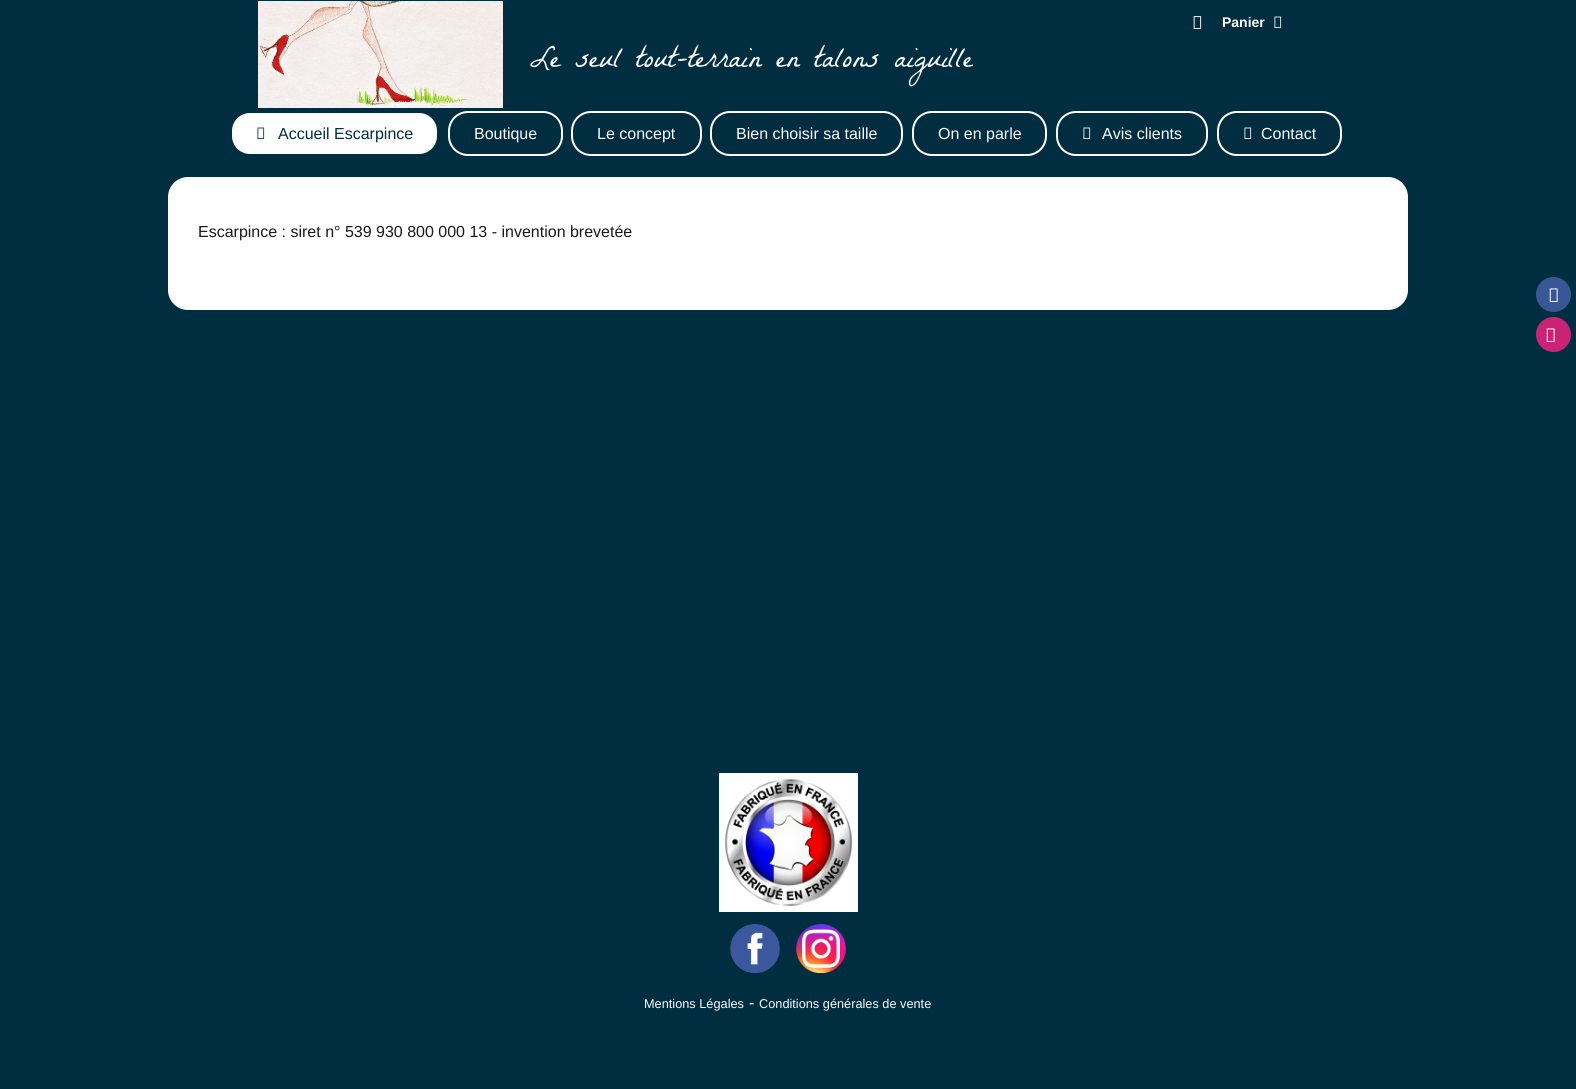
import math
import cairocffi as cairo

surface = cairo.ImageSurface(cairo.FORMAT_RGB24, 1576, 1089)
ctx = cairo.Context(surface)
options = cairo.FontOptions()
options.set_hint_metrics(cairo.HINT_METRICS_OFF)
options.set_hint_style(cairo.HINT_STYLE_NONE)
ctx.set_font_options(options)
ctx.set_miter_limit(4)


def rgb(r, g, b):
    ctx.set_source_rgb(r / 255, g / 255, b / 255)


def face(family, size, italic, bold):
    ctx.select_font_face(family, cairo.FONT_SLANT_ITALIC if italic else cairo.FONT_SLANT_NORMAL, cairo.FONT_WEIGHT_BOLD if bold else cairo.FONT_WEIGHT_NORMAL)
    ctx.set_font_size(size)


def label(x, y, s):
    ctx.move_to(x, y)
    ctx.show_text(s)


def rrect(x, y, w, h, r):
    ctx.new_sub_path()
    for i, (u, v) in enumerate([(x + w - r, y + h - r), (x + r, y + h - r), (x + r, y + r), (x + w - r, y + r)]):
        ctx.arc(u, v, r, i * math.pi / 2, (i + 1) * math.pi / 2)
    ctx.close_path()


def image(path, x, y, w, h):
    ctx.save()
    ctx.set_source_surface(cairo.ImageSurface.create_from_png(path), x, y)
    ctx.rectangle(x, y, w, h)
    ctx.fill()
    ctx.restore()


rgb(1, 45, 65)
ctx.paint()
image('image0.png', 258, 1, 245, 107)
image('image1.png', 1193, 16, 9, 13)
face('Liberation Sans', 14, 0, 1)
rgb(251, 251, 251)
label(1222, 27, 'Panier')
image('image2.png', 1274, 16, 8, 12)
ctx.save()
ctx.rectangle(530, 35, 443, 55)
ctx.clip()
face('La Belle Aurore', 30, 0, 0)
label(530, 67, 'Le seul tout-terrain en talons aiguille')
ctx.restore()
rgb(255, 255, 255)
rrect(231, 112, 207, 43, 19)
ctx.fill_preserve()
rgb(1, 45, 65)
ctx.stroke()
image('image3.png', 257, 127, 8, 12)
face('Liberation Sans', 16, 0, 0)
label(278, 139, 'Accueil Escarpince')
rrect(449, 112, 113, 43, 19)
rgb(255, 255, 255)
ctx.stroke()
rgb(251, 251, 251)
label(474, 139, 'Boutique')
rrect(572, 112, 129, 43, 19)
rgb(255, 255, 255)
ctx.stroke()
rgb(251, 251, 251)
label(597, 139, 'Le concept')
rrect(711, 112, 191, 43, 19)
rgb(255, 255, 255)
ctx.stroke()
rgb(251, 251, 251)
label(736, 139, 'Bien choisir sa taille')
rrect(913, 112, 133, 43, 19)
rgb(255, 255, 255)
ctx.stroke()
rgb(251, 251, 251)
label(938, 139, 'On en parle')
rrect(1057, 112, 150, 43, 19)
rgb(255, 255, 255)
ctx.stroke()
image('image2.png', 1083, 127, 8, 12)
rgb(251, 251, 251)
label(1102, 139, 'Avis clients')
rrect(1218, 112, 123, 43, 19)
rgb(255, 255, 255)
ctx.stroke()
image('image2.png', 1244, 127, 8, 12)
rgb(251, 251, 251)
label(1261, 139, 'Contact')
rgb(255, 255, 255)
rrect(168, 177, 1240, 133, 20)
ctx.fill()
rgb(25, 25, 25)
label(198, 237, 'Escarpince : siret n° 539 930 800 000 13 - invention brevetée')
image('image4.png', 719, 773, 139, 139)
image('image5.png', 730, 924, 50, 49)
image('image6.png', 796, 924, 50, 49)
face('Liberation Sans', 12.75, 0, 0)
rgb(251, 251, 251)
label(644, 1008, 'Mentions Légales')
face('Liberation Sans', 16, 0, 0)
label(749, 1008, '-')
face('Liberation Sans', 12.75, 0, 0)
label(759, 1008, 'Conditions générales de vente')
rgb(58, 87, 149)
ctx.new_path()
ctx.arc(1553.5, 294.5, 17.5, 0, 2 * math.pi)
ctx.fill()
image('image7.png', 1549, 288, 9, 14)
rgb(202, 35, 118)
ctx.arc(1553.5, 334.5, 17.5, 0, 2 * math.pi)
ctx.fill()
image('image8.png', 1546, 328, 9, 14)
surface.write_to_png('render.png')
